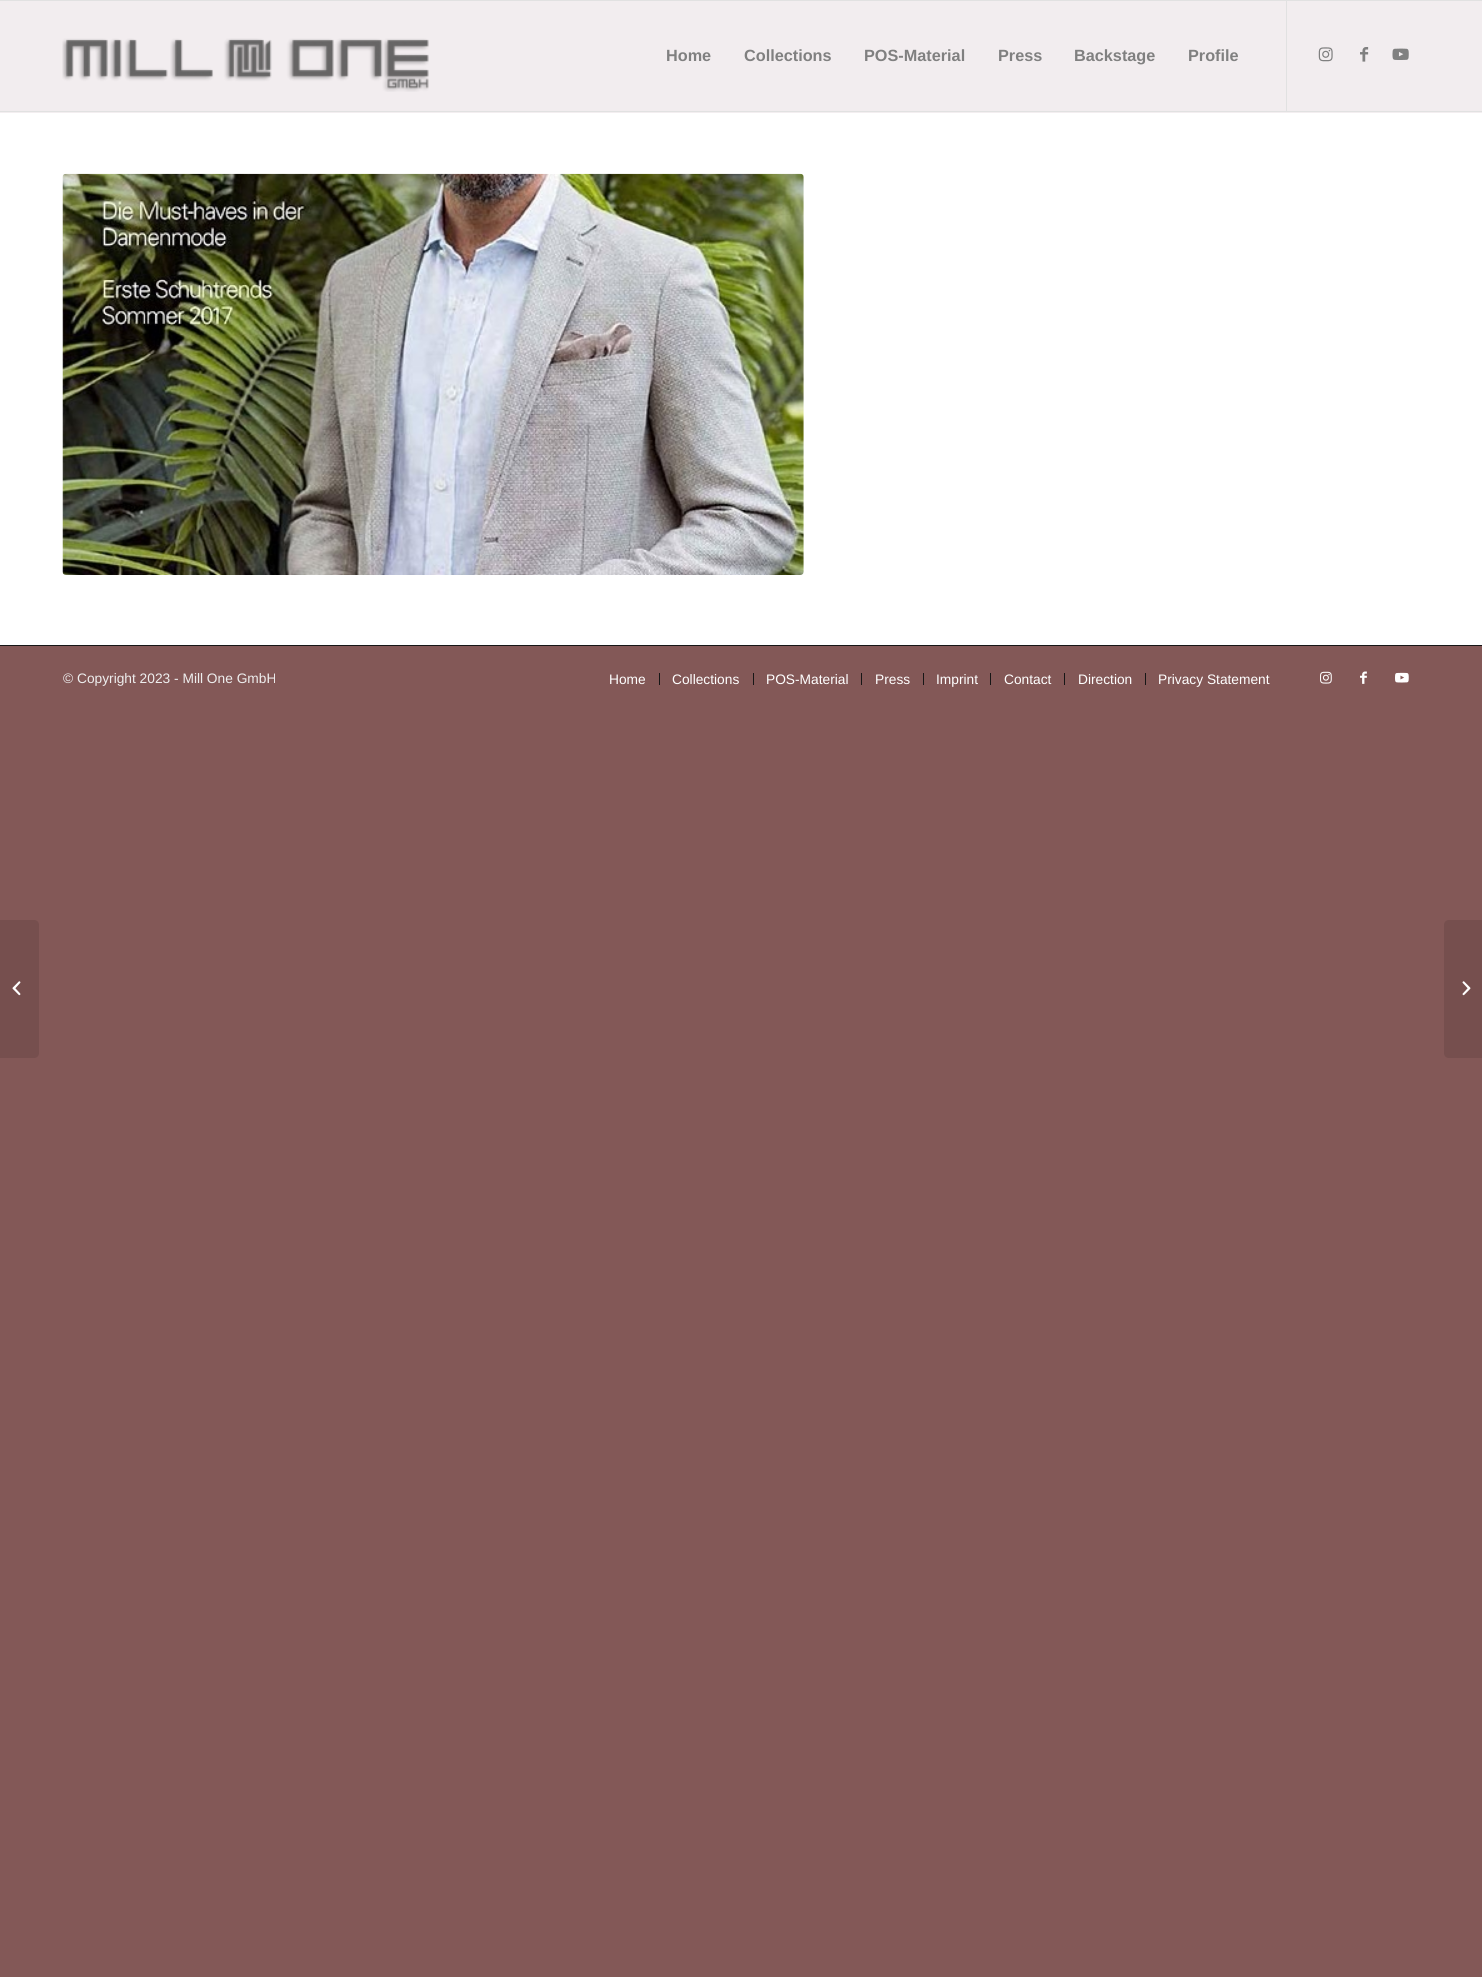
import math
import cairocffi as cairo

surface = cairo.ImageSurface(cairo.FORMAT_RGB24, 1482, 1977)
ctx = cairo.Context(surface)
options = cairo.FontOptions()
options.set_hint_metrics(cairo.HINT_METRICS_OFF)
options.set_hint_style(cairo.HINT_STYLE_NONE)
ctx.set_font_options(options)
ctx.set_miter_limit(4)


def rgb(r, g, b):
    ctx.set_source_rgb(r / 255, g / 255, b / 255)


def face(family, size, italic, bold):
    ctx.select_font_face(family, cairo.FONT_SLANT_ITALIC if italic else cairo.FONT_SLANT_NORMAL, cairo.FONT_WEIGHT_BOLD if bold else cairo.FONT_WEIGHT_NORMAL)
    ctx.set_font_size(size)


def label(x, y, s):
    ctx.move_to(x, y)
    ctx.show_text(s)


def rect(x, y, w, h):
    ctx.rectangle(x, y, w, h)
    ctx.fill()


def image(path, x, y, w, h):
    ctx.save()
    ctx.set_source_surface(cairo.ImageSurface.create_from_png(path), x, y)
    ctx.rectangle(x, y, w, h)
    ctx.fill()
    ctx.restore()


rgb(131, 88, 87)
ctx.paint()
rgb(225, 225, 225)
rect(0, 0, 1482, 1)
rect(0, 111, 1482, 1)
rgb(242, 237, 239)
rect(0, 1, 1482, 109)
image('image0.png', 62, 38, 367, 54)
rgb(241, 236, 238)
rect(0, 110, 1482, 1)
rgb(225, 225, 225)
rect(1286, 1, 1, 110)
face('Liberation Sans', 16.25, 0, 1)
rgb(128, 128, 128)
label(666, 61, 'Home')
label(744, 61, 'Collections')
label(864, 61, 'POS-Material')
label(998, 61, 'Press')
label(1074, 61, 'Backstage')
label(1188, 61, 'Profile')
image('image1.png', 1318, 47, 15, 15)
image('image2.png', 1360, 47, 9, 15)
image('image3.png', 1392, 48, 17, 12)
rgb(255, 255, 255)
rect(0, 113, 1482, 532)
rgb(243, 238, 240)
rect(0, 112, 1482, 1)
image('image4.png', 62, 173, 742, 402)
rgb(22, 22, 22)
rect(0, 645, 1482, 1)
face('Liberation Sans', 13.75, 0, 0)
rgb(238, 238, 238)
label(63, 683, '© Copyright 2023 - Mill One GmbH')
rgb(255, 255, 255)
label(609, 684, 'Home')
rgb(22, 22, 22)
rect(659, 673, 1, 12)
rgb(255, 255, 255)
label(672, 684, 'Collections')
rgb(22, 22, 22)
rect(753, 673, 1, 12)
rgb(255, 255, 255)
label(766, 684, 'POS-Material')
rgb(22, 22, 22)
rect(861, 673, 1, 12)
rgb(255, 255, 255)
label(875, 684, 'Press')
rgb(22, 22, 22)
rect(923, 673, 1, 12)
rgb(255, 255, 255)
label(936, 684, 'Imprint')
rgb(22, 22, 22)
rect(990, 673, 1, 12)
rgb(255, 255, 255)
label(1004, 684, 'Contact')
rgb(22, 22, 22)
rect(1064, 673, 1, 12)
rgb(255, 255, 255)
label(1078, 684, 'Direction')
rgb(22, 22, 22)
rect(1145, 673, 1, 12)
rgb(255, 255, 255)
label(1158, 684, 'Privacy Statement')
image('image5.png', 1320, 671, 12, 13)
image('image6.png', 1360, 671, 7, 13)
image('image7.png', 1395, 672, 14, 11)
rgb(118, 79, 78)
ctx.new_path()
ctx.move_to(0, 920)
ctx.line_to(34, 920)
ctx.curve_to(37, 920, 39, 922, 39, 925)
ctx.line_to(39, 1053)
ctx.curve_to(39, 1056, 37, 1058, 34, 1058)
ctx.line_to(0, 1058)
ctx.close_path()
ctx.fill()
image('image8.png', 12, 981, 9, 15)
ctx.new_path()
ctx.move_to(1449, 920)
ctx.line_to(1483, 920)
ctx.line_to(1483, 1058)
ctx.line_to(1449, 1058)
ctx.curve_to(1446, 1058, 1444, 1056, 1444, 1053)
ctx.line_to(1444, 925)
ctx.curve_to(1444, 922, 1446, 920, 1449, 920)
ctx.close_path()
ctx.fill()
image('image9.png', 1462, 981, 9, 15)
surface.write_to_png('render.png')
